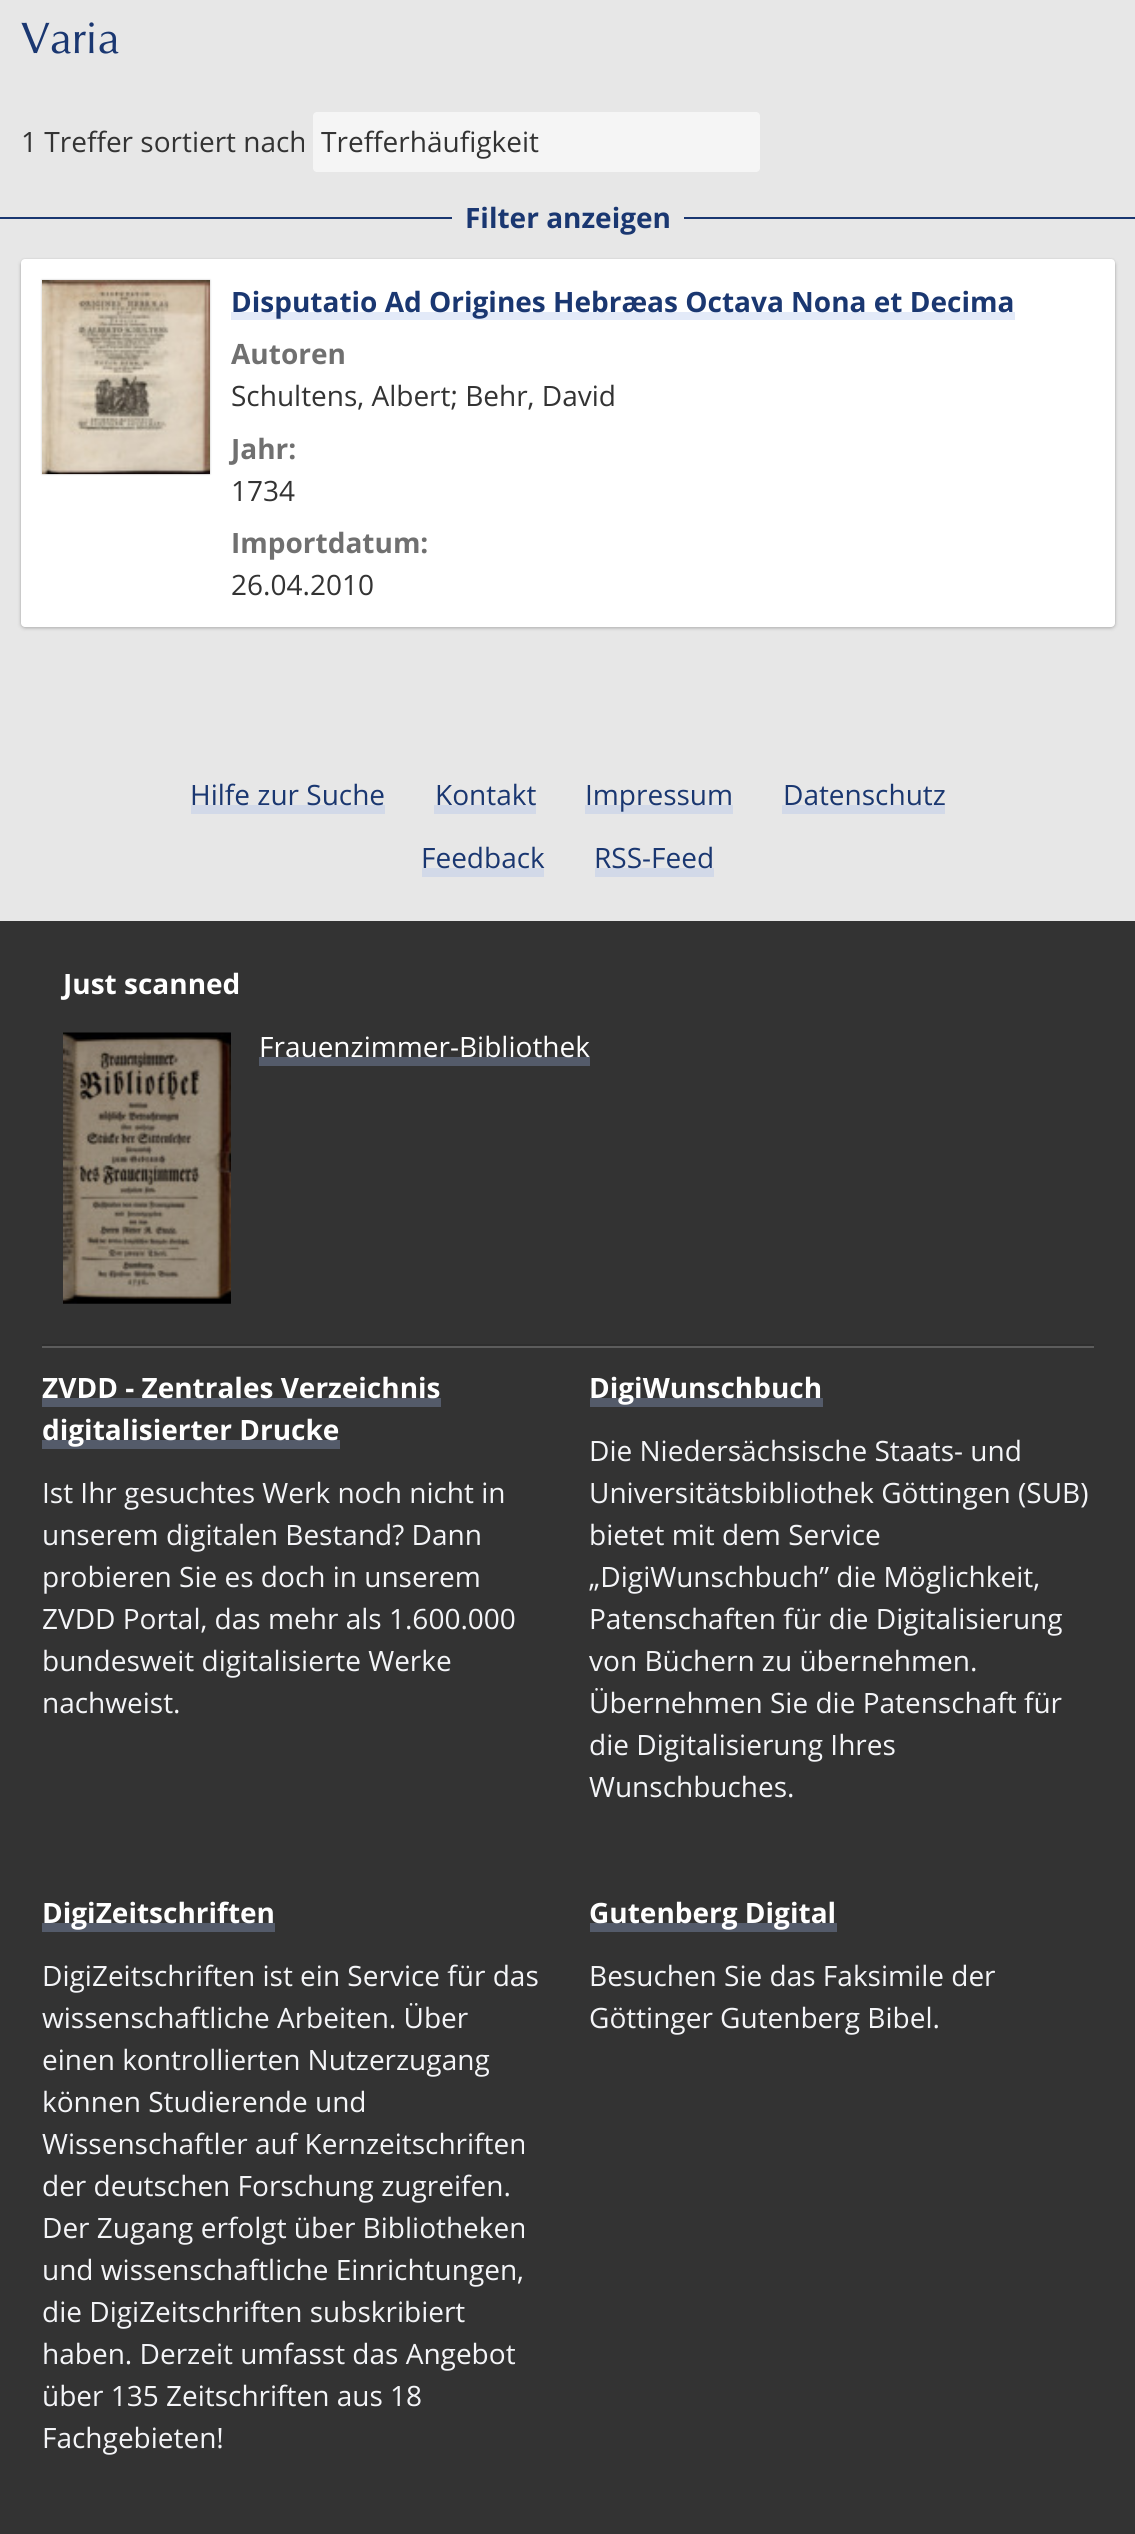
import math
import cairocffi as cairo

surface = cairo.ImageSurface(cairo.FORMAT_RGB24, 1135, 2534)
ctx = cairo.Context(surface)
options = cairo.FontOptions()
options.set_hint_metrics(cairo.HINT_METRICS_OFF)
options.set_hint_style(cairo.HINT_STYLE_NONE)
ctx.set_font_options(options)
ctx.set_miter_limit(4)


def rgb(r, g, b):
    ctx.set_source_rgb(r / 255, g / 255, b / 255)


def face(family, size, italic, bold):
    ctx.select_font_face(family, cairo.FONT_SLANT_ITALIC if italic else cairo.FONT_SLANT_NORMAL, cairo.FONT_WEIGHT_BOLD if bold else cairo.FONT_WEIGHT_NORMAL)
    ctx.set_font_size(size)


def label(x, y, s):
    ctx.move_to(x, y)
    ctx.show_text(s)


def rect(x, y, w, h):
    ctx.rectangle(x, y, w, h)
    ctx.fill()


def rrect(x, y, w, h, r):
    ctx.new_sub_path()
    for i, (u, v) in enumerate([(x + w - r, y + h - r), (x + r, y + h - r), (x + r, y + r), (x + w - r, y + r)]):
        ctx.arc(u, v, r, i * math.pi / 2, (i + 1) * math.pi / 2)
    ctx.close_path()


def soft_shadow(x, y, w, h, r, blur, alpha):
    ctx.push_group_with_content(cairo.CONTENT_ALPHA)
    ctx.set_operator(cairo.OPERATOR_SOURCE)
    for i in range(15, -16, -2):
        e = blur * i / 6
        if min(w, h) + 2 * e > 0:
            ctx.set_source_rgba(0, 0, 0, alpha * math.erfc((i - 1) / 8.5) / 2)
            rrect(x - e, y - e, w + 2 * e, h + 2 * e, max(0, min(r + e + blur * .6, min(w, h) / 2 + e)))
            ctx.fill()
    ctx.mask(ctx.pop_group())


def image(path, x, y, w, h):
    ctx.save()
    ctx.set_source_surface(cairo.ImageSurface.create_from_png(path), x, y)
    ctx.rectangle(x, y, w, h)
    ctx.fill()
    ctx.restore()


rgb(231, 231, 231)
ctx.paint()
face('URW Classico', 44, 0, 0)
rgb(26, 55, 113)
label(21, 53, 'Varia')
face('Open Sans', 28, 0, 0)
rgb(51, 51, 51)
label(21, 152, '1 Treffer sortiert nach')
rgb(245, 245, 245)
rrect(313, 112, 447, 60, 4)
ctx.fill()
rgb(51, 51, 51)
label(321, 152, 'Trefferhäufigkeit')
rgb(26, 55, 113)
rect(0, 217, 1135, 2)
rgb(231, 231, 231)
rrect(452, 196, 232, 42, 4)
ctx.fill()
face('Open Sans', 28, 0, 1)
rgb(26, 55, 113)
label(465, 228, 'Filter anzeigen')
rgb(0, 0, 0)
soft_shadow(21, 261, 1094, 367, 4, 2, 0.24)
soft_shadow(21, 259, 1094, 368, 4, 1, 0.08)
rgb(255, 255, 255)
rrect(21, 259, 1094, 368, 4)
ctx.fill()
rgb(0, 0, 0)
soft_shadow(42, 280, 168, 194, 0, 1, 0.24)
image('image0.png', 42, 280, 168, 195)
rgb(227, 234, 248)
rect(231, 312, 784, 8)
rgb(26, 55, 113)
label(231, 312, 'Disputatio Ad Origines Hebræas Octava Nona et Decima')
rgb(112, 112, 112)
label(231, 364, 'Autoren')
face('Open Sans', 28, 0, 0)
rgb(51, 51, 51)
label(231, 406, 'Schultens, Albert; Behr, David')
face('Open Sans', 28, 0, 1)
rgb(112, 112, 112)
label(231, 459, 'Jahr:')
face('Open Sans', 28, 0, 0)
rgb(51, 51, 51)
label(231, 501, '1734')
face('Open Sans', 28, 0, 1)
rgb(112, 112, 112)
label(231, 553, 'Importdatum:')
face('Open Sans', 28, 0, 0)
rgb(51, 51, 51)
label(231, 595, '26.04.2010')
rgb(210, 217, 232)
rect(191, 805, 194, 9)
rgb(26, 55, 113)
label(190, 805, 'Hilfe zur Suche')
rgb(210, 217, 232)
rect(434, 805, 102, 9)
rgb(26, 55, 113)
label(435, 805, 'Kontakt')
rgb(210, 217, 232)
rect(585, 805, 148, 9)
rgb(26, 55, 113)
label(585, 805, 'Impressum')
rgb(210, 217, 232)
rect(782, 805, 163, 9)
rgb(26, 55, 113)
label(783, 805, 'Datenschutz')
rgb(210, 217, 232)
rect(422, 868, 122, 9)
rgb(26, 55, 113)
label(421, 868, 'Feedback')
rgb(210, 217, 232)
rect(595, 868, 119, 9)
rgb(26, 55, 113)
label(594, 868, 'RSS-Feed')
rgb(51, 51, 51)
rect(0, 921, 1135, 1613)
rgb(92, 92, 92)
ctx.new_path()
ctx.move_to(42, 1346)
ctx.line_to(42, 1348)
ctx.line_to(1094, 1348)
ctx.line_to(1094, 943)
ctx.line_to(1094, 1346)
ctx.close_path()
ctx.fill()
rgb(46, 46, 46)
rect(42, 1344, 1052, 2)
face('Open Sans', 28, 0, 1)
rgb(255, 255, 255)
label(63, 994, 'Just scanned')
image('image1.png', 63, 1032, 168, 272)
rgb(84, 91, 106)
rect(259, 1057, 331, 9)
face('Open Sans', 28, 0, 0)
rgb(255, 255, 255)
label(259, 1057, 'Frauenzimmer-Bibliothek')
rgb(84, 91, 106)
rect(42, 1398, 399, 9)
face('Open Sans', 28, 0, 1)
rgb(255, 255, 255)
label(42, 1398, 'ZVDD - Zentrales Verzeichnis')
rgb(84, 91, 106)
rect(42, 1440, 298, 9)
rgb(255, 255, 255)
label(42, 1440, 'digitalisierter Drucke')
face('Open Sans', 28, 0, 0)
rgb(244, 245, 248)
label(42, 1503, 'Ist Ihr gesuchtes Werk noch nicht in')
label(42, 1545, 'unserem digitalen Bestand? Dann')
label(42, 1587, 'probieren Sie es doch in unserem')
label(42, 1629, 'ZVDD Portal, das mehr als 1.600.000')
label(42, 1671, 'bundesweit digitalisierte Werke')
label(42, 1713, 'nachweist.')
rgb(84, 91, 106)
rect(590, 1398, 233, 9)
face('Open Sans', 28, 0, 1)
rgb(255, 255, 255)
label(589, 1398, 'DigiWunschbuch')
face('Open Sans', 28, 0, 0)
rgb(244, 245, 248)
label(589, 1461, 'Die Niedersächsische Staats- und')
label(589, 1503, 'Universitätsbibliothek Göttingen (SUB)')
label(589, 1545, 'bietet mit dem Service')
label(589, 1587, '„DigiWunschbuch” die Möglichkeit,')
label(589, 1629, 'Patenschaften für die Digitalisierung')
label(589, 1671, 'von Büchern zu übernehmen.')
label(589, 1713, 'Übernehmen Sie die Patenschaft für')
label(589, 1755, 'die Digitalisierung Ihres')
label(589, 1797, 'Wunschbuches.')
rgb(84, 91, 106)
rect(42, 1923, 233, 9)
face('Open Sans', 28, 0, 1)
rgb(255, 255, 255)
label(42, 1923, 'DigiZeitschriften')
face('Open Sans', 28, 0, 0)
rgb(244, 245, 248)
label(42, 1986, 'DigiZeitschriften ist ein Service für das')
label(42, 2028, 'wissenschaftliche Arbeiten. Über')
label(42, 2070, 'einen kontrollierten Nutzerzugang')
label(42, 2112, 'können Studierende und')
label(42, 2154, 'Wissenschaftler auf Kernzeitschriften')
label(42, 2196, 'der deutschen Forschung zugreifen.')
label(42, 2238, 'Der Zugang erfolgt über Bibliotheken')
label(42, 2280, 'und wissenschaftliche Einrichtungen,')
label(42, 2322, 'die DigiZeitschriften subskribiert')
label(42, 2364, 'haben. Derzeit umfasst das Angebot')
label(42, 2406, 'über 135 Zeitschriften aus 18')
label(42, 2448, 'Fachgebieten!')
rgb(84, 91, 106)
rect(590, 1923, 247, 9)
face('Open Sans', 28, 0, 1)
rgb(255, 255, 255)
label(589, 1923, 'Gutenberg Digital')
face('Open Sans', 28, 0, 0)
rgb(244, 245, 248)
label(589, 1986, 'Besuchen Sie das Faksimile der')
label(589, 2028, 'Göttinger Gutenberg Bibel.')
surface.write_to_png('render.png')
